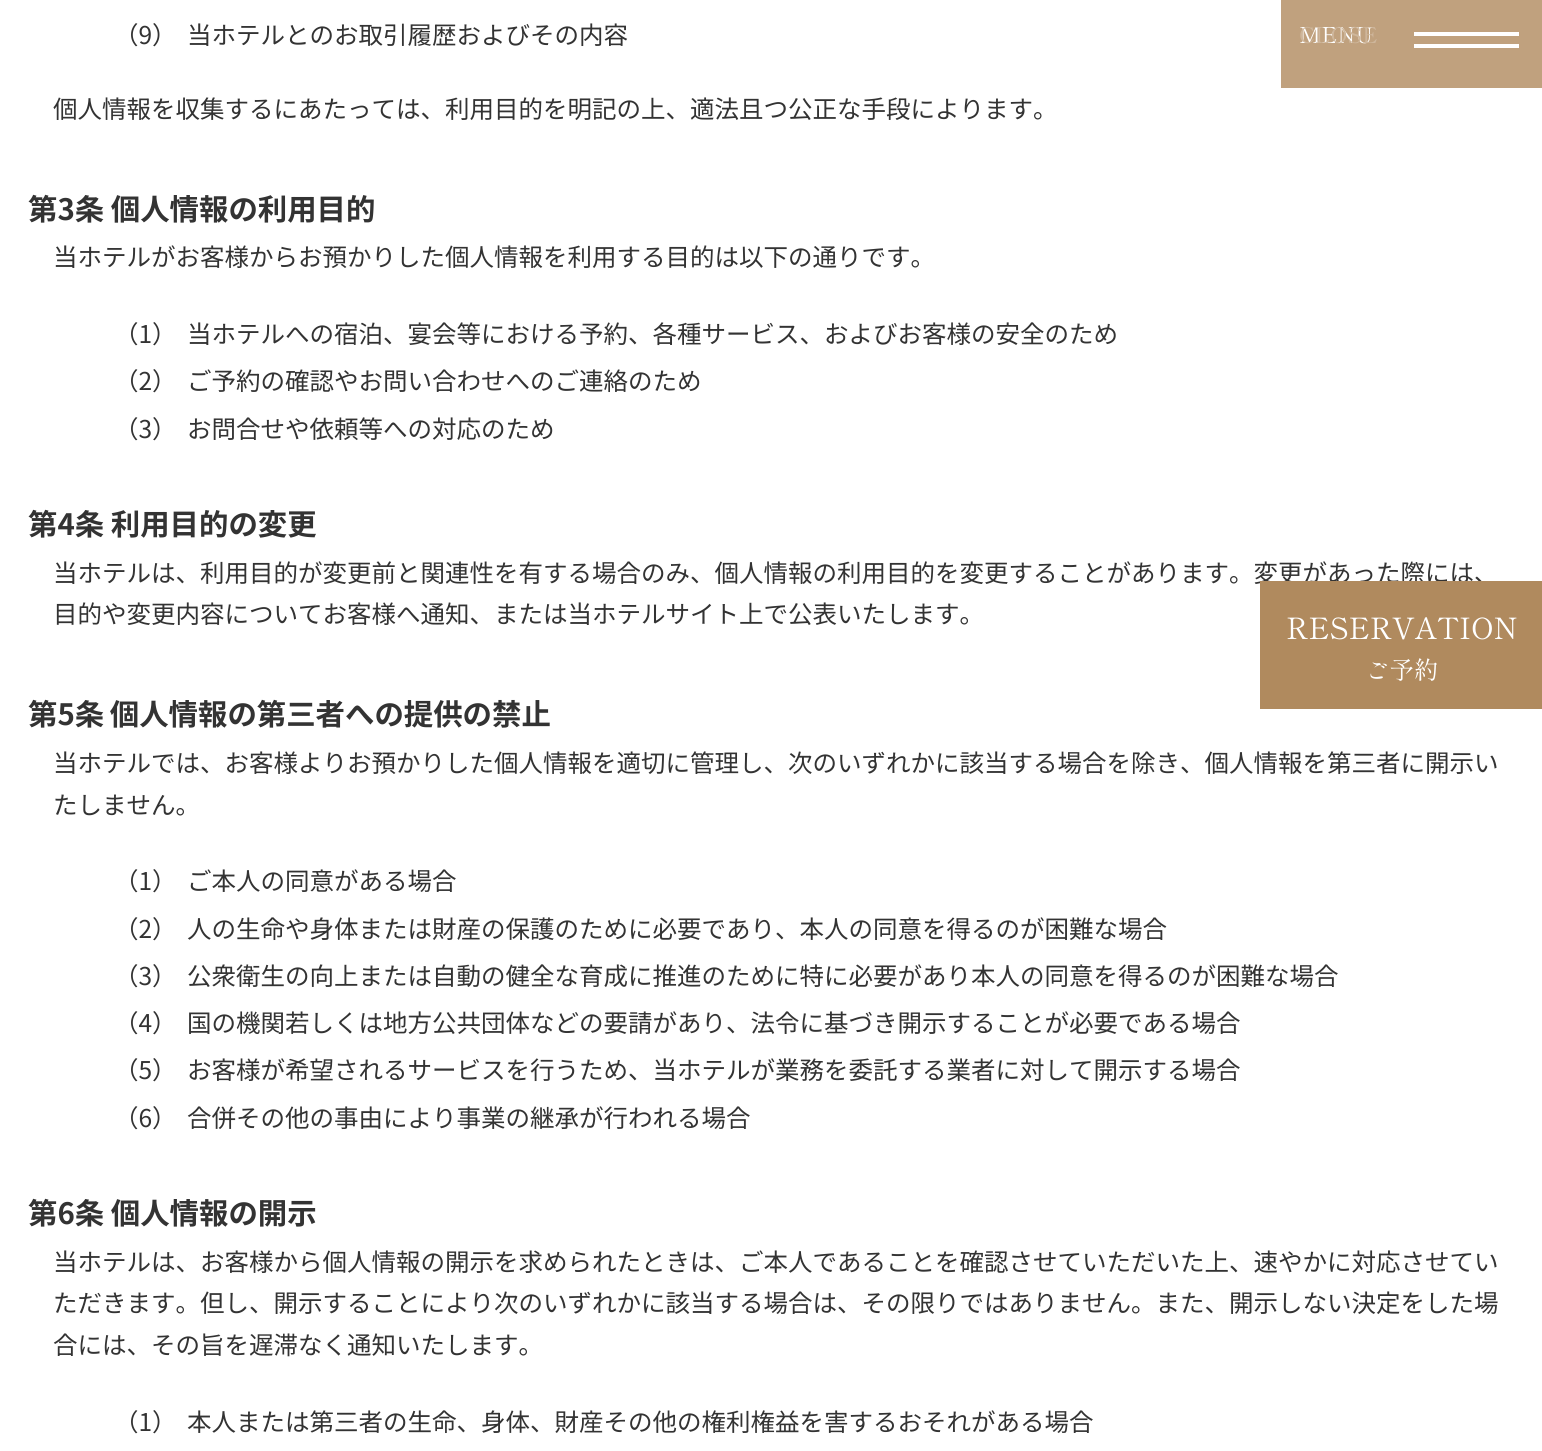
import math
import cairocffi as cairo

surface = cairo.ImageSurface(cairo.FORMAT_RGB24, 1542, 1451)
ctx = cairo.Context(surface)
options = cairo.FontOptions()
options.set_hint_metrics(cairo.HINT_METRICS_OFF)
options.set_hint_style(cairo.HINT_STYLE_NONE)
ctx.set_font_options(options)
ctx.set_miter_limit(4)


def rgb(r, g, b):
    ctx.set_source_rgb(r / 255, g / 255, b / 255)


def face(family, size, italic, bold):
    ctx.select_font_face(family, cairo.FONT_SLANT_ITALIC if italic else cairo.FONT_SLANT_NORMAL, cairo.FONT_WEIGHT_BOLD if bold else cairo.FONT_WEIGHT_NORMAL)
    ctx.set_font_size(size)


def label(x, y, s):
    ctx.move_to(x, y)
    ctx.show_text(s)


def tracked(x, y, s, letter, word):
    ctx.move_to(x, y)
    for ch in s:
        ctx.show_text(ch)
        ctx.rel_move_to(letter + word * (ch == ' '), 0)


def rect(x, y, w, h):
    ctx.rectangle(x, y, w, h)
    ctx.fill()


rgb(255, 255, 255)
ctx.paint()
face('Noto Sans JP', 24.5, 0, 0)
rgb(51, 51, 51)
label(114, 44, '（9）')
label(187, 44, '当ホテルとのお取引履歴およびその内容')
label(53, 118, '個人情報を収集するにあたっては、利用目的を明記の上、適法且つ公正な手段によります。')
face('Noto Sans JP', 29.4, 0, 1)
label(28, 220, '第3条 個人情報の利用目的')
face('Noto Sans JP', 24.5, 0, 0)
label(53, 266, '当ホテルがお客様からお預かりした個人情報を利用する目的は以下の通りです。')
label(114, 343, '（1）')
label(187, 343, '当ホテルへの宿泊、宴会等における予約、各種サービス、およびお客様の安全のため')
label(114, 390, '（2）')
label(187, 390, 'ご予約の確認やお問い合わせへのご連絡のため')
label(114, 438, '（3）')
label(187, 438, 'お問合せや依頼等への対応のため')
face('Noto Sans JP', 29.4, 0, 1)
label(28, 535, '第4条 利用目的の変更')
face('Noto Sans JP', 24.5, 0, 0)
label(53, 582, '当ホテルは、利用目的が変更前と関連性を有する場合のみ、個人情報の利用目的を変更することがあります。変更があった際には、')
label(53, 623, '目的や変更内容についてお客様へ通知、または当ホテルサイト上で公表いたします。')
face('Noto Sans JP', 29.4, 0, 1)
tracked(28, 725, '第5条 個人情報の第三者への提供の禁止', 0, -1)
face('Noto Sans JP', 24.5, 0, 0)
label(53, 772, '当ホテルでは、お客様よりお預かりした個人情報を適切に管理し、次のいずれかに該当する場合を除き、個人情報を第三者に開示い')
label(53, 814, 'たしません。')
label(114, 890, '（1）')
label(187, 890, 'ご本人の同意がある場合')
label(114, 938, '（2）')
label(187, 938, '人の生命や身体または財産の保護のために必要であり、本人の同意を得るのが困難な場合')
label(114, 985, '（3）')
label(187, 985, '公衆衛生の向上または自動の健全な育成に推進のために特に必要があり本人の同意を得るのが困難な場合')
label(114, 1032, '（4）')
label(187, 1032, '国の機関若しくは地方公共団体などの要請があり、法令に基づき開示することが必要である場合')
label(114, 1079, '（5）')
label(187, 1079, 'お客様が希望されるサービスを行うため、当ホテルが業務を委託する業者に対して開示する場合')
label(114, 1127, '（6）')
label(187, 1127, '合併その他の事由により事業の継承が行われる場合')
face('Noto Sans JP', 29.4, 0, 1)
label(28, 1224, '第6条 個人情報の開示')
face('Noto Sans JP', 24.5, 0, 0)
label(53, 1271, '当ホテルは、お客様から個人情報の開示を求められたときは、ご本人であることを確認させていただいた上、速やかに対応させてい')
label(53, 1312, 'ただきます。但し、開示することにより次のいずれかに該当する場合は、その限りではありません。また、開示しない決定をした場')
label(53, 1354, '合には、その旨を遅滞なく通知いたします。')
label(114, 1431, '（1）')
label(187, 1431, '本人または第三者の生命、身体、財産その他の権利権益を害するおそれがある場合')
rgb(192, 161, 126)
rect(1281, 0, 261, 88)
face('Shippori Mincho', 22, 0, 0)
rgb(255, 255, 255)
label(1299, 43, 'MENU')
rgb(206, 182, 155)
label(1299, 43, 'CLOSE')
rgb(255, 255, 255)
rect(1414, 32, 105, 4)
rect(1414, 44, 105, 4)
rgb(176, 138, 94)
rect(1260, 581, 282, 128)
face('Shippori Mincho', 29.4, 0, 0)
rgb(255, 255, 255)
label(1286, 639, 'RESERVATION')
face('Shippori Mincho', 24.5, 0, 0)
label(1365, 679, 'ご予約')
surface.write_to_png('render.png')
